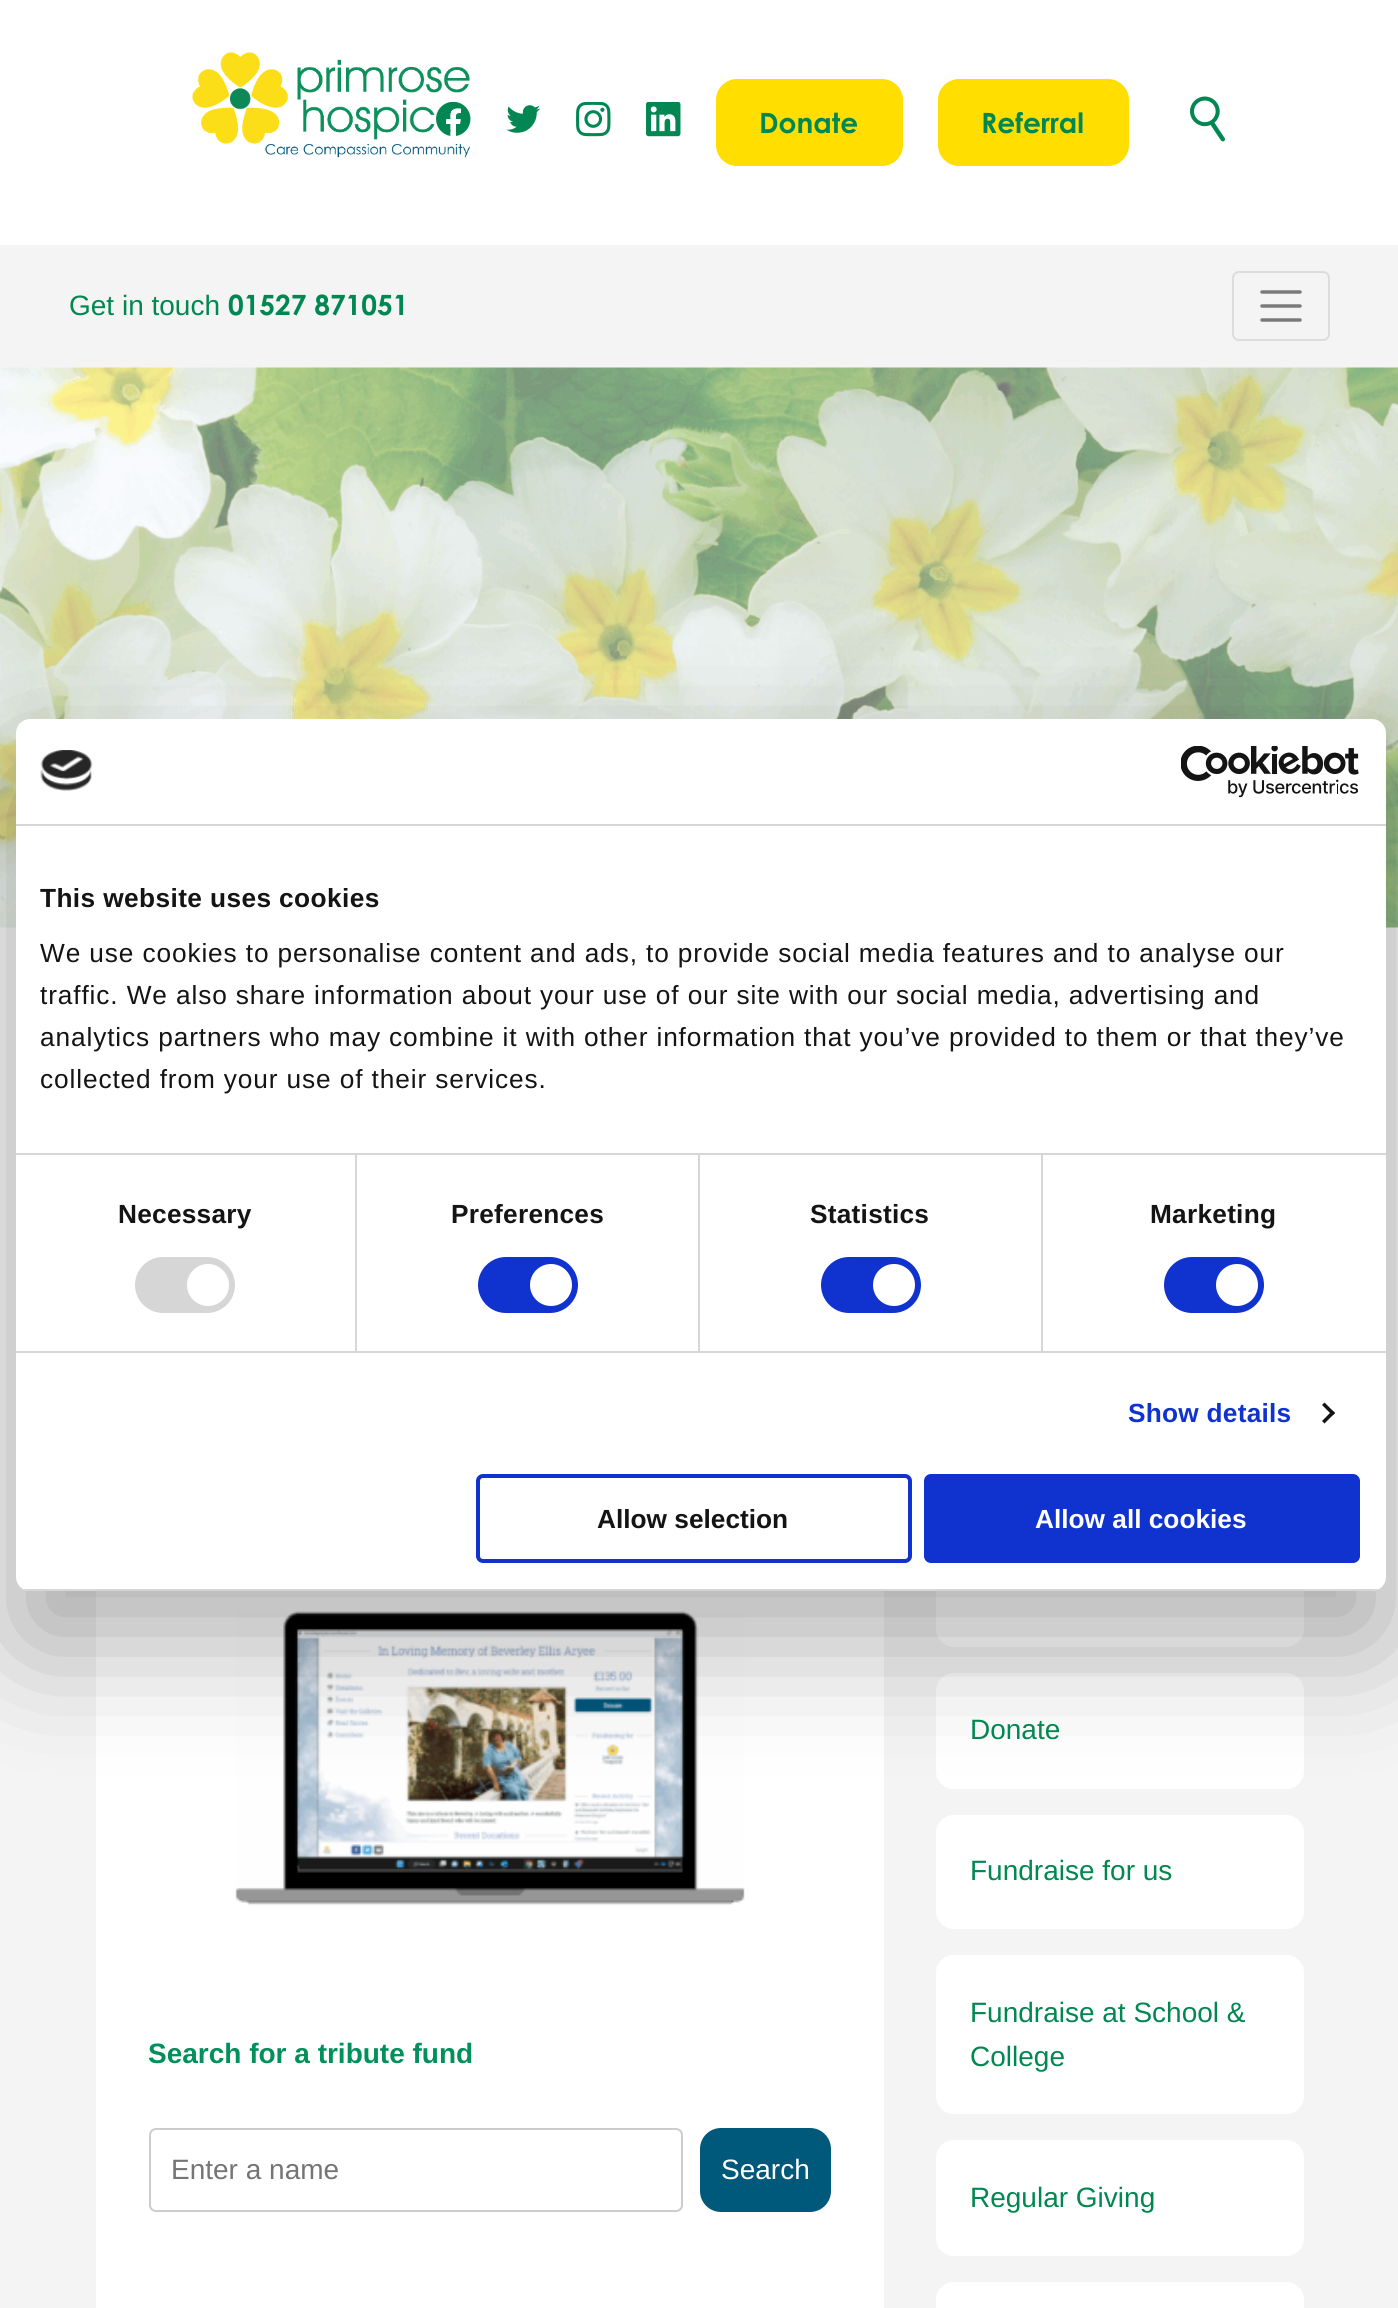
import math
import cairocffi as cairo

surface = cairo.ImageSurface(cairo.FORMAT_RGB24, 1398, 2308)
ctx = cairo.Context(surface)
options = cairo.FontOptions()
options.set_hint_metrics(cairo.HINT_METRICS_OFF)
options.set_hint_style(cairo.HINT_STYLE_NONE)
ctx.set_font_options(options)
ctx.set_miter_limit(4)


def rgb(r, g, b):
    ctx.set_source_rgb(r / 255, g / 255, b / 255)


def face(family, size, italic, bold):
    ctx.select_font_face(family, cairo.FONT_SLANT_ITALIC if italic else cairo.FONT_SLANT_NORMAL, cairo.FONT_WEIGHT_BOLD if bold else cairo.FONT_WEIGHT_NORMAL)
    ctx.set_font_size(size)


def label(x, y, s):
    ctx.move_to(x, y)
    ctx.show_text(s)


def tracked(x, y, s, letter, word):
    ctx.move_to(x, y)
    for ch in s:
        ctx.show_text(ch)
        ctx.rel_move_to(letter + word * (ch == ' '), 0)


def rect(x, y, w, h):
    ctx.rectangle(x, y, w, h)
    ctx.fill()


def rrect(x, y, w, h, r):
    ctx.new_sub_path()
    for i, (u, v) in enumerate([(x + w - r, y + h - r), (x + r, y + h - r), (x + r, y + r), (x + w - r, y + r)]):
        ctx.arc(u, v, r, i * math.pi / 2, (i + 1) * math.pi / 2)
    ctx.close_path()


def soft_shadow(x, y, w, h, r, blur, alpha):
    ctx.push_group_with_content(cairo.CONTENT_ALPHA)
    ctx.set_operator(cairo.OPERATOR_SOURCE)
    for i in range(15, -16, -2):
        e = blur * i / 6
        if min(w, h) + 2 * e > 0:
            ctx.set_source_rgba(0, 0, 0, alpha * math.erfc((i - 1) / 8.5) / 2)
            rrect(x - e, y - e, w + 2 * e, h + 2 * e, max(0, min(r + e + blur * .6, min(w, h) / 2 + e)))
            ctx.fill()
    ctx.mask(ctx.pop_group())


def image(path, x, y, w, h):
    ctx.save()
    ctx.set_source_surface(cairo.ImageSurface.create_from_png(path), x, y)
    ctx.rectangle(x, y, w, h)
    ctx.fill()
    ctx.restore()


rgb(244, 244, 244)
ctx.paint()
rgb(255, 255, 255)
rect(0, 0, 1398, 245)
image('image0.png', 192, 52, 278, 106)
image('image1.png', 436, 102, 35, 34)
image('image2.png', 506, 105, 34, 28)
image('image3.png', 576, 102, 35, 35)
image('image4.png', 646, 102, 35, 35)
rgb(255, 222, 0)
rrect(716, 79, 187, 87, 21)
ctx.fill()
face('Century Gothic', 28, 0, 1)
rgb(1, 135, 82)
label(759, 133, 'Donate')
rgb(255, 222, 0)
rrect(938, 79, 191, 87, 21)
ctx.fill()
rgb(1, 135, 82)
label(981, 133, 'Referral')
image('image5.png', 1190, 96, 35, 46)
face('Liberation Sans', 28, 0, 0)
label(69, 315, 'Get in touch')
face('Century Gothic', 28, 0, 1)
label(228, 315, '01527 871051')
rrect(1233, 272, 96, 68, 6)
rgb(220, 220, 220)
ctx.stroke()
ctx.new_path()
ctx.move_to(1262, 292)
ctx.line_to(1300, 292)
ctx.move_to(1262, 306)
ctx.line_to(1300, 306)
ctx.move_to(1262, 320)
ctx.line_to(1300, 320)
rgb(122, 122, 122)
ctx.set_line_width(3.5)
ctx.set_line_cap(cairo.LINE_CAP_ROUND)
ctx.stroke()
image('image6.png', 0, 367, 1398, 561)
rgb(255, 255, 255)
rect(96, 1591, 788, 717)
image('image9.png', 235, 1611, 510, 294)
rrect(936, 1488, 368, 159, 18)
ctx.fill()
rrect(936, 1673, 368, 116, 18)
ctx.fill()
rrect(936, 1815, 368, 114, 18)
ctx.fill()
rgb(0, 0, 0)
soft_shadow(16, 775, 1370, 872, 14, 59.5, 0.3)
rgb(255, 255, 255)
rrect(16, 719, 1370, 872, 14)
ctx.fill()
rgb(214, 214, 214)
rect(16, 824, 1370, 2)
image('image7.png', 40, 750, 53, 41)
image('image8.png', 1181, 746, 178, 52)
rect(16, 1153, 1370, 2)
face('Liberation Sans', 26.25, 0, 1)
rgb(20, 20, 20)
tracked(40, 907, 'This website uses cookies', 0.4, 0)
face('Liberation Sans', 26.25, 0, 0)
tracked(40, 962, 'We use cookies to personalise content and ads, to provide social media features and to analyse our', 0.88, 0)
tracked(40, 1004, 'traffic. We also share information about your use of our site with our social media, advertising and', 0.88, 0)
tracked(40, 1046, 'analytics partners who may combine it with other information that you’ve provided to them or that they’ve', 0.88, 0)
tracked(40, 1088, 'collected from your use of their services.', 0.88, 0)
rgb(214, 214, 214)
rect(16, 1351, 1370, 2)
rect(355, 1155, 2, 196)
face('Liberation Sans', 26.25, 0, 1)
rgb(20, 20, 20)
tracked(118, 1223, 'Necessary', 0.25, 0)
rgb(214, 214, 214)
rrect(135, 1257, 100, 56, 28)
ctx.fill()
rgb(255, 255, 255)
ctx.arc(208, 1285, 21, 0, 2 * math.pi)
ctx.fill()
rgb(214, 214, 214)
rect(698, 1155, 2, 196)
rgb(20, 20, 20)
tracked(451, 1223, 'Preferences', 0.25, 0)
rgb(16, 50, 207)
rrect(478, 1257, 100, 56, 28)
ctx.fill()
rgb(255, 255, 255)
ctx.arc(551, 1285, 21, 0, 2 * math.pi)
ctx.fill()
rgb(214, 214, 214)
rect(1041, 1155, 2, 196)
rgb(20, 20, 20)
tracked(810, 1223, 'Statistics', 0.25, 0)
rgb(16, 50, 207)
rrect(821, 1257, 100, 56, 28)
ctx.fill()
rgb(255, 255, 255)
ctx.arc(894, 1285, 21, 0, 2 * math.pi)
ctx.fill()
rgb(20, 20, 20)
tracked(1150, 1223, 'Marketing', 0.25, 0)
rgb(16, 50, 207)
rrect(1164, 1257, 100, 56, 28)
ctx.fill()
rgb(255, 255, 255)
ctx.arc(1237, 1285, 21, 0, 2 * math.pi)
ctx.fill()
rgb(16, 50, 207)
tracked(1128, 1422, 'Show details', 0.25, 0)
rgb(20, 20, 20)
ctx.new_path()
ctx.move_to(1324.5, 1402.5)
ctx.line_to(1335, 1413)
ctx.line_to(1332.5, 1415.5)
ctx.line_to(1322, 1405)
ctx.close_path()
ctx.fill()
ctx.new_path()
ctx.move_to(1332.5, 1410.5)
ctx.line_to(1335, 1413)
ctx.line_to(1324.5, 1423.5)
ctx.line_to(1322, 1421)
ctx.close_path()
ctx.fill()
ctx.save()
rrect(16, 719, 1370, 872, 14)
ctx.clip()
rgb(214, 214, 214)
rect(16, 1589, 1370, 2)
ctx.restore()
rrect(478, 1476, 432, 85, 5)
rgb(16, 50, 207)
ctx.set_line_width(4)
ctx.set_line_cap(cairo.LINE_CAP_BUTT)
ctx.stroke()
rgb(20, 20, 20)
label(597, 1528, 'Allow selection')
rgb(16, 50, 207)
rrect(926, 1476, 432, 85, 5)
ctx.fill_preserve()
ctx.stroke()
rgb(255, 255, 255)
label(1035, 1528, 'Allow all cookies')
face('Liberation Sans', 28, 0, 1)
rgb(0, 144, 92)
label(148, 2063, 'Search for a tribute fund')
rrect(150, 2129, 532, 82, 6)
rgb(204, 204, 204)
ctx.set_line_width(2)
ctx.stroke()
face('Liberation Sans', 28, 0, 0)
rgb(117, 117, 117)
label(171, 2179, 'Enter a name')
rgb(0, 88, 123)
rrect(700, 2128, 131, 84, 21)
ctx.fill()
rgb(255, 255, 255)
label(721, 2179, 'Search')
rgb(1, 135, 82)
label(970, 1739, 'Donate')
label(970, 1880, 'Fundraise for us')
rgb(255, 255, 255)
rrect(936, 1955, 368, 159, 18)
ctx.fill()
rgb(1, 135, 82)
label(970, 2022, 'Fundraise at School &')
label(970, 2066, 'College')
rgb(255, 255, 255)
rrect(936, 2140, 368, 116, 18)
ctx.fill()
rgb(1, 135, 82)
label(970, 2207, 'Regular Giving')
rgb(255, 255, 255)
rrect(936, 2282, 368, 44, 18)
ctx.fill()
surface.write_to_png('render.png')
